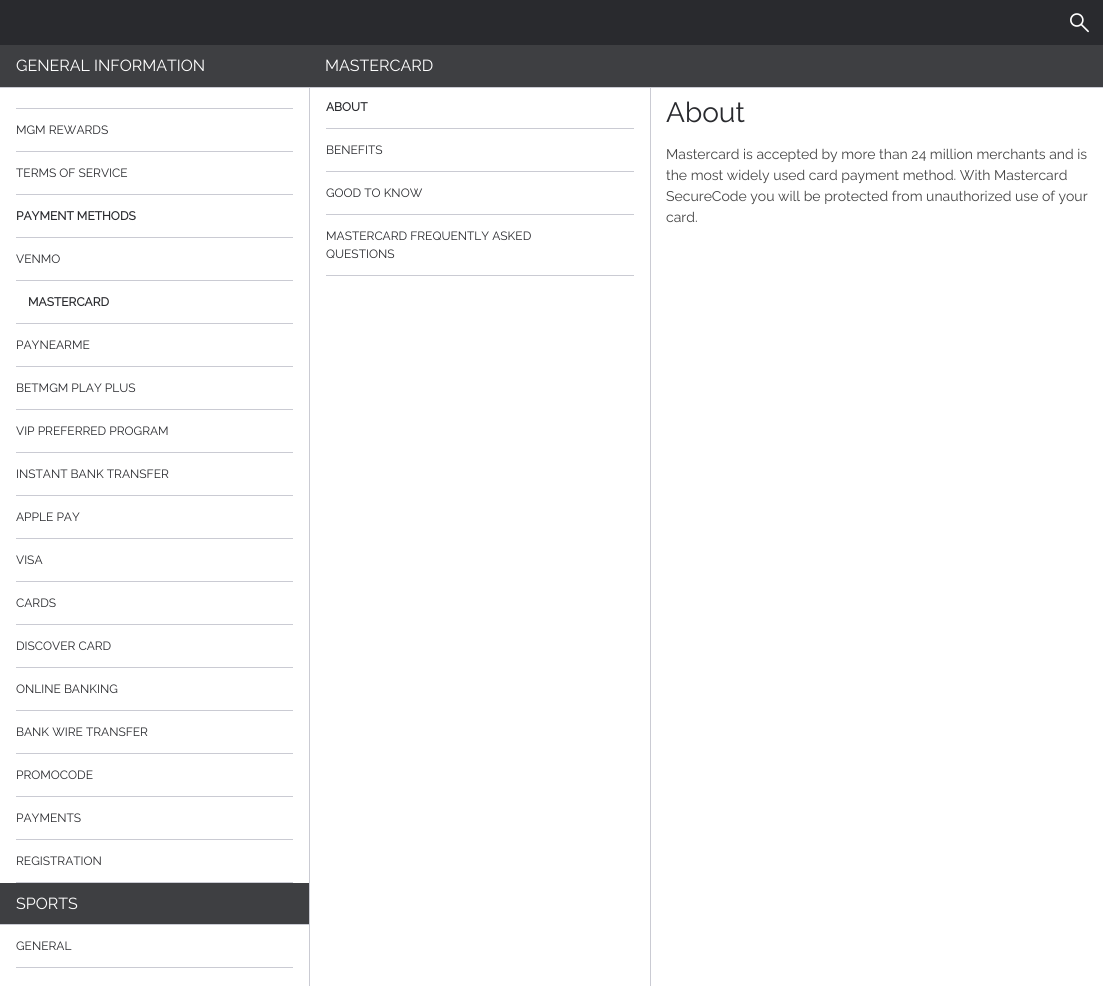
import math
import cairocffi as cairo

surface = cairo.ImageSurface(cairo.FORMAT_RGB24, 1103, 986)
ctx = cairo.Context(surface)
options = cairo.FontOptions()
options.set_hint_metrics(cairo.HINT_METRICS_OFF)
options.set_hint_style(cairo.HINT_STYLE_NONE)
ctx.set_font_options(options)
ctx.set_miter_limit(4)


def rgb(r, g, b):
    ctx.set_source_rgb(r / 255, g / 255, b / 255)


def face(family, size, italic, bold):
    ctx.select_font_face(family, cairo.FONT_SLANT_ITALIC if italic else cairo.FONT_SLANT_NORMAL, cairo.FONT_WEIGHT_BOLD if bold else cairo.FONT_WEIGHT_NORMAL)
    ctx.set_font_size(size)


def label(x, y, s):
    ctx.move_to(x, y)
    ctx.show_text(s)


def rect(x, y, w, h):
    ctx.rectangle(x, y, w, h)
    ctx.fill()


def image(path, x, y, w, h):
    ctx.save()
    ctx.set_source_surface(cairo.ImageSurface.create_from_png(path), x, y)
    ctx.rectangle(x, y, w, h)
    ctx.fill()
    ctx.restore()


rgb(255, 255, 255)
ctx.paint()
rgb(41, 42, 46)
rect(0, 0, 1103, 45)
image('image0.png', 1070, 13, 19, 20)
rgb(202, 203, 211)
rect(650, 86, 1, 900)
rgb(62, 63, 66)
rect(0, 45, 1103, 42)
rgb(202, 203, 211)
rect(0, 87, 1103, 1)
face('Raleway Thin', 16, 0, 0)
rgb(255, 255, 255)
label(16, 71, 'GENERAL INFORMATION')
rgb(202, 203, 211)
rect(16, 108, 277, 1)
rect(16, 151, 277, 1)
face('Raleway Thin', 12, 0, 0)
rgb(41, 42, 46)
label(16, 134, 'MGM REWARDS')
rgb(202, 203, 211)
rect(16, 194, 277, 1)
rgb(41, 42, 46)
label(16, 177, 'TERMS OF SERVICE')
rgb(202, 203, 211)
rect(16, 796, 277, 1)
face('Raleway', 12, 0, 1)
rgb(41, 42, 46)
label(16, 220, 'PAYMENT METHODS')
rgb(202, 203, 211)
rect(16, 237, 277, 1)
rect(16, 280, 277, 1)
face('Raleway Thin', 12, 0, 0)
rgb(41, 42, 46)
label(16, 263, 'VENMO')
rgb(202, 203, 211)
rect(16, 323, 277, 1)
face('Raleway', 12, 0, 1)
rgb(41, 42, 46)
label(28, 306, 'MASTERCARD')
rgb(202, 203, 211)
rect(16, 366, 277, 1)
face('Raleway Thin', 12, 0, 0)
rgb(41, 42, 46)
label(16, 349, 'PAYNEARME')
rgb(202, 203, 211)
rect(16, 409, 277, 1)
rgb(41, 42, 46)
label(16, 392, 'BETMGM PLAY PLUS')
rgb(202, 203, 211)
rect(16, 452, 277, 1)
rgb(41, 42, 46)
label(16, 435, 'VIP PREFERRED PROGRAM')
rgb(202, 203, 211)
rect(16, 495, 277, 1)
rgb(41, 42, 46)
label(16, 478, 'INSTANT BANK TRANSFER')
rgb(202, 203, 211)
rect(16, 538, 277, 1)
rgb(41, 42, 46)
label(16, 521, 'APPLE PAY')
rgb(202, 203, 211)
rect(16, 581, 277, 1)
rgb(41, 42, 46)
label(16, 564, 'VISA')
rgb(202, 203, 211)
rect(16, 624, 277, 1)
rgb(41, 42, 46)
label(16, 607, 'CARDS')
rgb(202, 203, 211)
rect(16, 667, 277, 1)
rgb(41, 42, 46)
label(16, 650, 'DISCOVER CARD')
rgb(202, 203, 211)
rect(16, 710, 277, 1)
rgb(41, 42, 46)
label(16, 693, 'ONLINE BANKING')
rgb(202, 203, 211)
rect(16, 753, 277, 1)
rgb(41, 42, 46)
label(16, 736, 'BANK WIRE TRANSFER')
label(16, 779, 'PROMOCODE')
rgb(202, 203, 211)
rect(16, 839, 277, 1)
rgb(41, 42, 46)
label(16, 822, 'PAYMENTS')
rgb(202, 203, 211)
rect(16, 882, 277, 1)
rgb(41, 42, 46)
label(16, 865, 'REGISTRATION')
rgb(62, 63, 66)
rect(0, 883, 309, 41)
rgb(202, 203, 211)
rect(0, 924, 309, 1)
face('Raleway Thin', 16, 0, 0)
rgb(255, 255, 255)
label(16, 909, 'SPORTS')
rgb(202, 203, 211)
rect(16, 967, 277, 1)
face('Raleway Thin', 12, 0, 0)
rgb(41, 42, 46)
label(16, 950, 'GENERAL')
face('Raleway Thin', 16, 0, 0)
rgb(255, 255, 255)
label(325, 71, 'MASTERCARD')
rgb(202, 203, 211)
rect(309, 88, 1, 898)
rect(326, 128, 308, 1)
face('Raleway', 12, 0, 1)
rgb(41, 42, 46)
label(326, 111, 'ABOUT')
rgb(202, 203, 211)
rect(326, 171, 308, 1)
face('Raleway Thin', 12, 0, 0)
rgb(41, 42, 46)
label(326, 154, 'BENEFITS')
rgb(202, 203, 211)
rect(326, 214, 308, 1)
rgb(41, 42, 46)
label(326, 197, 'GOOD TO KNOW')
rgb(202, 203, 211)
rect(326, 275, 308, 1)
rgb(41, 42, 46)
label(326, 240, 'MASTERCARD FREQUENTLY ASKED')
label(326, 258, 'QUESTIONS')
face('Raleway Thin', 28, 0, 0)
label(666, 122, 'About')
face('Raleway Thin', 14, 0, 0)
rgb(68, 68, 68)
label(666, 159, 'Mastercard is accepted by more than 24 million merchants and is')
label(666, 180, 'the most widely used card payment method. With Mastercard')
label(666, 201, 'SecureCode you will be protected from unauthorized use of your')
label(666, 222, 'card.')
surface.write_to_png('render.png')
